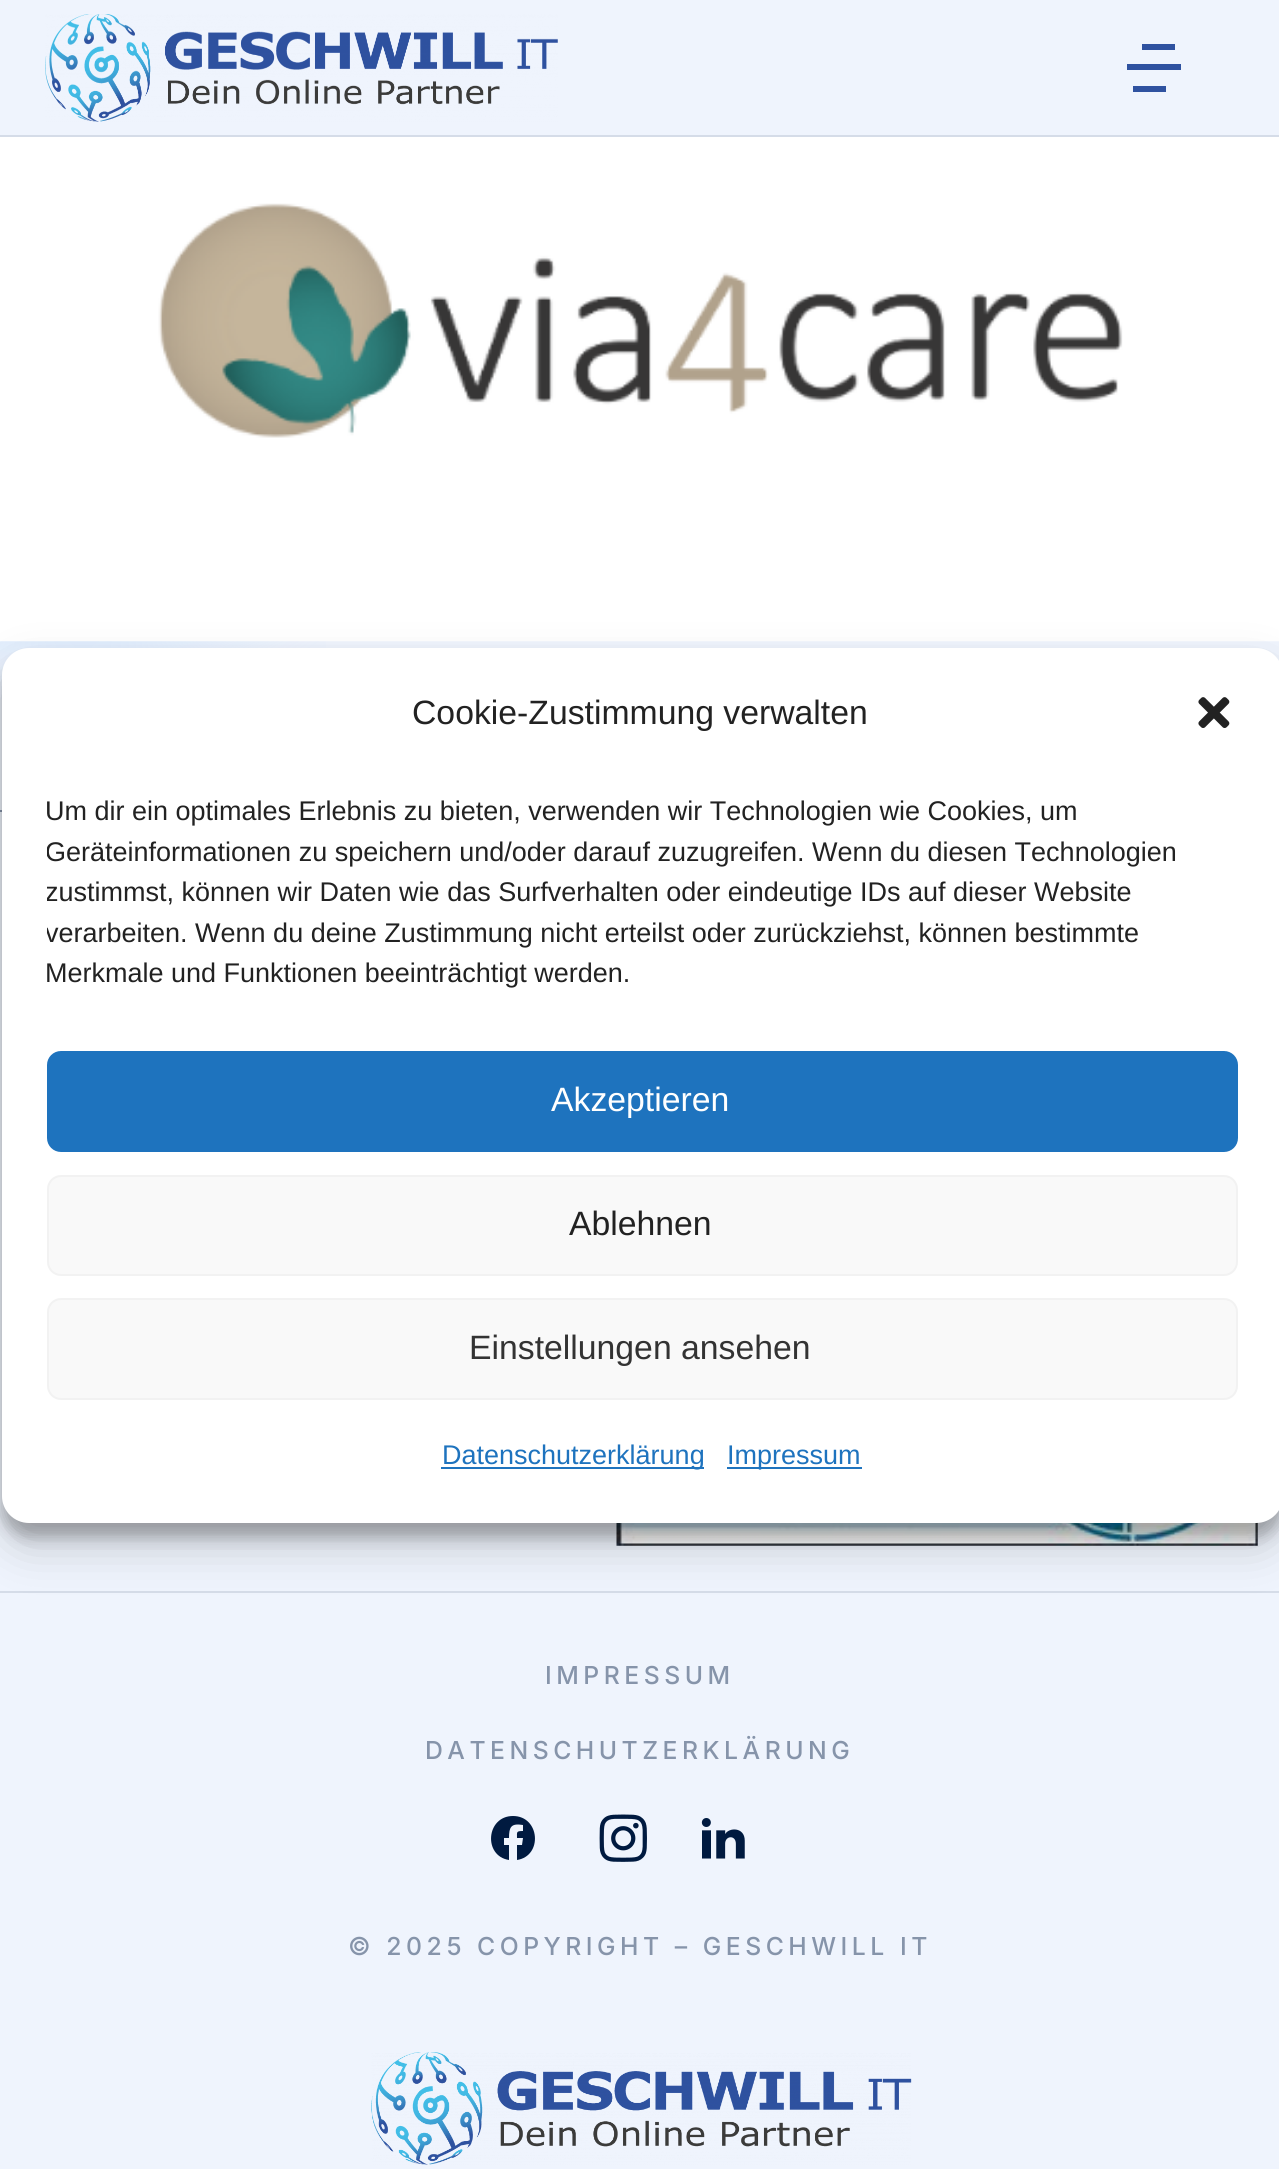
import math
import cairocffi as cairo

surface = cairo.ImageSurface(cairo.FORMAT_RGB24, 1279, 2169)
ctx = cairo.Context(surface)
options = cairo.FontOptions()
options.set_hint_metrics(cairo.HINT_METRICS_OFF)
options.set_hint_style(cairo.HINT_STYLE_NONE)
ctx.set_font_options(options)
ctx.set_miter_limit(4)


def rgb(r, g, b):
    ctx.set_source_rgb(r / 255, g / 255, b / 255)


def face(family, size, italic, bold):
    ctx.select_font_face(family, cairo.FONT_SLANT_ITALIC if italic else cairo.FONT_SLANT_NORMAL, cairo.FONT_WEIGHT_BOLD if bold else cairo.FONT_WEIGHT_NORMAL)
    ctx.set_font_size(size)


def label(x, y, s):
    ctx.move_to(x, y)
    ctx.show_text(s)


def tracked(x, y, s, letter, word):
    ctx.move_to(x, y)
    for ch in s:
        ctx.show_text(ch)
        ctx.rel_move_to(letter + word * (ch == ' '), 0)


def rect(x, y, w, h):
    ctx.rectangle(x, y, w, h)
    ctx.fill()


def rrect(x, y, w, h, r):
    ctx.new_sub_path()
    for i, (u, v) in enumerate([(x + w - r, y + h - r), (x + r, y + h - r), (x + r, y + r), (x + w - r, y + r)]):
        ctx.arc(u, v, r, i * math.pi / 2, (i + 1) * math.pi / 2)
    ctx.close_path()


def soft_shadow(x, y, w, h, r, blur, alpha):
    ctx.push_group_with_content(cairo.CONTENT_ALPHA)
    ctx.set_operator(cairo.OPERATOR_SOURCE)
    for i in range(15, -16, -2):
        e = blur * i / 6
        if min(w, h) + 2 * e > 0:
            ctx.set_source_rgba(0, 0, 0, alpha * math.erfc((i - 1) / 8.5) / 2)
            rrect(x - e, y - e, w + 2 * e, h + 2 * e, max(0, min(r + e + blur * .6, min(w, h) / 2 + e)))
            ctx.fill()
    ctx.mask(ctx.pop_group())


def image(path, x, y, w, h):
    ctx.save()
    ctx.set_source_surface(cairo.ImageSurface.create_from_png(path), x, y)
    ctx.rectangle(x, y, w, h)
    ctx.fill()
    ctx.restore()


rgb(239, 244, 253)
ctx.paint()
image('image0.png', 0, 641, 326, 58)
image('image3.png', 0, 137, 1279, 505)
rgb(134, 148, 170)
rect(0, 810, 2, 2)
image('image4.png', 616, 1522, 642, 24)
rgb(0, 0, 0)
soft_shadow(2, 662, 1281, 875, 27, 7, 0.23)
rgb(213, 220, 232)
rect(0, 1591, 1279, 2)
rgb(0, 0, 0)
soft_shadow(2, 671, 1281, 875, 27, 22.5, 0.19)
rgb(255, 255, 255)
rrect(2, 648, 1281, 875, 27)
ctx.fill()
face('Liberation Sans', 33.75, 0, 0)
rgb(34, 34, 34)
label(412, 724, 'Cookie-Zustimmung verwalten')
image('image1.png', 1198, 697, 32, 31)
face('Liberation Sans', 27, 0, 0)
label(45, 820, 'Um dir ein optimales Erlebnis zu bieten, verwenden wir Technologien wie Cookies, um')
ctx.save()
ctx.rectangle(47, 792, 1191, 214)
ctx.clip()
label(45, 861, 'Geräteinformationen zu speichern und/oder darauf zuzugreifen. Wenn du diesen Technologien')
label(45, 901, 'zustimmst, können wir Daten wie das Surfverhalten oder eindeutige IDs auf dieser Website')
label(45, 942, 'verarbeiten. Wenn du deine Zustimmung nicht erteilst oder zurückziehst, können bestimmte')
ctx.restore()
label(45, 982, 'Merkmale und Funktionen beeinträchtigt werden.')
rgb(30, 115, 190)
rrect(48, 1052, 1189, 99, 13)
ctx.fill_preserve()
ctx.stroke()
face('Liberation Sans', 33.75, 0, 0)
rgb(255, 255, 255)
label(551, 1111, 'Akzeptieren')
rgb(249, 249, 249)
rrect(48, 1176, 1189, 99, 13)
ctx.fill_preserve()
rgb(242, 242, 242)
ctx.stroke()
rgb(34, 34, 34)
label(569, 1235, 'Ablehnen')
rgb(249, 249, 249)
rrect(48, 1299, 1189, 100, 13)
ctx.fill_preserve()
rgb(242, 242, 242)
ctx.stroke()
rgb(51, 51, 51)
label(469, 1359, 'Einstellungen ansehen')
rgb(30, 115, 190)
rect(441, 1467, 263, 2)
face('Liberation Sans', 27, 0, 0)
label(442, 1464, 'Datenschutzerklärung')
rect(727, 1467, 135, 2)
label(727, 1464, 'Impressum')
rgb(213, 220, 232)
rect(0, 135, 1279, 2)
image('image2.png', 45, 14, 513, 108)
rgb(47, 82, 160)
ctx.new_path()
ctx.move_to(1166, 86)
ctx.line_to(1166, 92)
ctx.line_to(1133, 92)
ctx.line_to(1133, 86)
ctx.close_path()
ctx.move_to(1181, 64)
ctx.line_to(1181, 70)
ctx.line_to(1127, 70)
ctx.line_to(1127, 64)
ctx.close_path()
ctx.move_to(1175, 44)
ctx.line_to(1175, 50)
ctx.line_to(1142, 50)
ctx.line_to(1142, 44)
ctx.close_path()
ctx.fill()
face('Inter Medium', 24.75, 0, 0)
rgb(134, 148, 170)
tracked(545, 1684, 'IMPRESSUM', 4.5, 0)
tracked(425, 1759, 'DATENSCHUTZERKLÄRUNG', 4.5, 0)
rgb(0, 26, 64)
ctx.new_path()
ctx.move_to(513, 1816)
ctx.curve_to(486, 1816, 483, 1856, 509, 1860)
ctx.line_to(509, 1845)
ctx.line_to(504, 1845)
ctx.line_to(504, 1838)
ctx.line_to(509, 1838)
ctx.curve_to(509, 1827, 511, 1823, 523, 1825)
ctx.line_to(523, 1831)
ctx.curve_to(516, 1831, 517, 1832, 517, 1838)
ctx.line_to(523, 1838)
ctx.line_to(522, 1845)
ctx.line_to(517, 1845)
ctx.line_to(517, 1860)
ctx.curve_to(543, 1856, 540, 1816, 513, 1816)
ctx.close_path()
ctx.fill()
image('image5.png', 599, 1814, 48, 48)
image('image6.png', 701, 1818, 44, 41)
rgb(134, 148, 170)
tracked(348, 1955, '© 2025 COPYRIGHT – GESCHWILL IT', 4.5, 0)
image('image7.png', 371, 2052, 541, 113)
surface.write_to_png('render.png')
